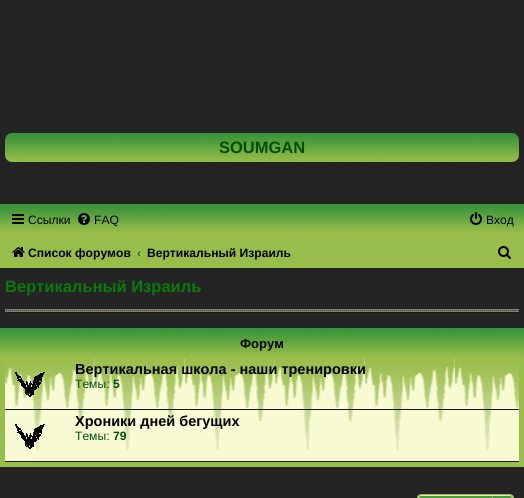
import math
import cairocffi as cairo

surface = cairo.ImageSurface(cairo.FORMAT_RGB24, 524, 498)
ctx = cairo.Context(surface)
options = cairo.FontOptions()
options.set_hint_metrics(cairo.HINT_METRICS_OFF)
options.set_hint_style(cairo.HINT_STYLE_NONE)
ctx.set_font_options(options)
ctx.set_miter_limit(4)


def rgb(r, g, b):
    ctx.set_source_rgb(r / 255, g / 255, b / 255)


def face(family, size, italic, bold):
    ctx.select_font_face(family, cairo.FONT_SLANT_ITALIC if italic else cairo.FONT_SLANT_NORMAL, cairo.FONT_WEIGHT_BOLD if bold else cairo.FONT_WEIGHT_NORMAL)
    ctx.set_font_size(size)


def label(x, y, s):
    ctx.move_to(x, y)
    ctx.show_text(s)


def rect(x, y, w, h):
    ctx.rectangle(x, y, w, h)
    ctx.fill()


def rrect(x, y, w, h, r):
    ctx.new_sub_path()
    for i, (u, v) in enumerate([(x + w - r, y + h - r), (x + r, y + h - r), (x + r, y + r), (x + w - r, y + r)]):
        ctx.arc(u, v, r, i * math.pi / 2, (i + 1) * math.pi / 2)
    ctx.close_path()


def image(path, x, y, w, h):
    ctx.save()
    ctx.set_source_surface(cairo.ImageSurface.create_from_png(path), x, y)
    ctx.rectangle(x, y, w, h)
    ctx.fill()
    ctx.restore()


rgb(36, 36, 36)
ctx.paint()
image('image0.png', 5, 133, 514, 29)
face('Liberation Sans', 16.5, 0, 1)
rgb(6, 78, 6)
label(219, 153, 'SOUMGAN')
rgb(152, 189, 74)
rect(0, 232, 524, 36)
image('image1.png', 0, 204, 524, 28)
image('image2.png', 12, 214, 12, 10)
face('Liberation Sans', 12.1, 0, 0)
rgb(0, 0, 0)
label(28, 224, 'Ссылки')
image('image3.png', 78, 213, 12, 12)
label(94, 224, 'FAQ')
image('image4.png', 470, 212, 12, 13)
label(486, 224, 'Вход')
image('image5.png', 12, 247, 13, 10)
face('Liberation Sans', 12.1, 0, 1)
label(28, 257, 'Список форумов')
rgb(9, 123, 9)
label(137, 257, '‹')
rgb(0, 0, 0)
label(147, 257, 'Вертикальный Израиль')
image('image6.png', 498, 246, 13, 13)
face('Liberation Sans', 16.5, 0, 1)
rgb(9, 123, 9)
label(5, 292, 'Вертикальный Израиль')
image('image7.png', 5, 309, 514, 4)
rgb(152, 189, 74)
rect(0, 356, 524, 111)
image('image1.png', 0, 328, 524, 28)
face('Liberation Sans', 13, 0, 1)
rgb(0, 0, 0)
label(240, 348, 'Форум')
rgb(247, 250, 210)
rect(5, 450, 514, 11)
image('image8.png', 5, 358, 514, 92)
rgb(24, 24, 24)
rect(5, 409, 514, 1)
image('image9.png', 15, 372, 30, 25)
face('Liberation Sans', 14.5, 0, 1)
rgb(0, 0, 0)
label(75, 374, 'Вертикальная школа - наши тренировки')
face('Liberation Sans', 12.1, 0, 0)
rgb(6, 78, 6)
label(75, 388, 'Темы:')
face('Liberation Sans', 12.1, 0, 1)
label(113, 388, '5')
rgb(24, 24, 24)
rect(5, 461, 514, 1)
image('image10.png', 15, 424, 30, 25)
face('Liberation Sans', 14.5, 0, 1)
rgb(0, 0, 0)
label(75, 426, 'Хроники дней бегущих')
face('Liberation Sans', 12.1, 0, 0)
rgb(6, 78, 6)
label(75, 440, 'Темы:')
face('Liberation Sans', 12.1, 0, 1)
label(113, 440, '79')
ctx.save()
rrect(417, 494, 97, 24, 4)
ctx.clip()
gradient = cairo.LinearGradient(466, 495, 466, 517)
gradient.add_color_stop_rgba(0, 0.227, 0.58, 0.227, 1)
gradient.add_color_stop_rgba(0.5, 0.596, 0.741, 0.29, 1)
gradient.add_color_stop_rgba(1, 0.933, 0.878, 0.749, 1)
ctx.set_source(gradient)
rect(417, 495, 97, 3)
ctx.restore()
rrect(418.5, 495.5, 94, 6, 2.5)
rgb(238, 224, 191)
ctx.set_line_width(1)
ctx.stroke()
rrect(417.5, 494.5, 96, 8, 3.5)
rgb(152, 189, 74)
ctx.stroke()
rgb(199, 195, 191)
rect(492, 497, 1, 1)
surface.write_to_png('render.png')
